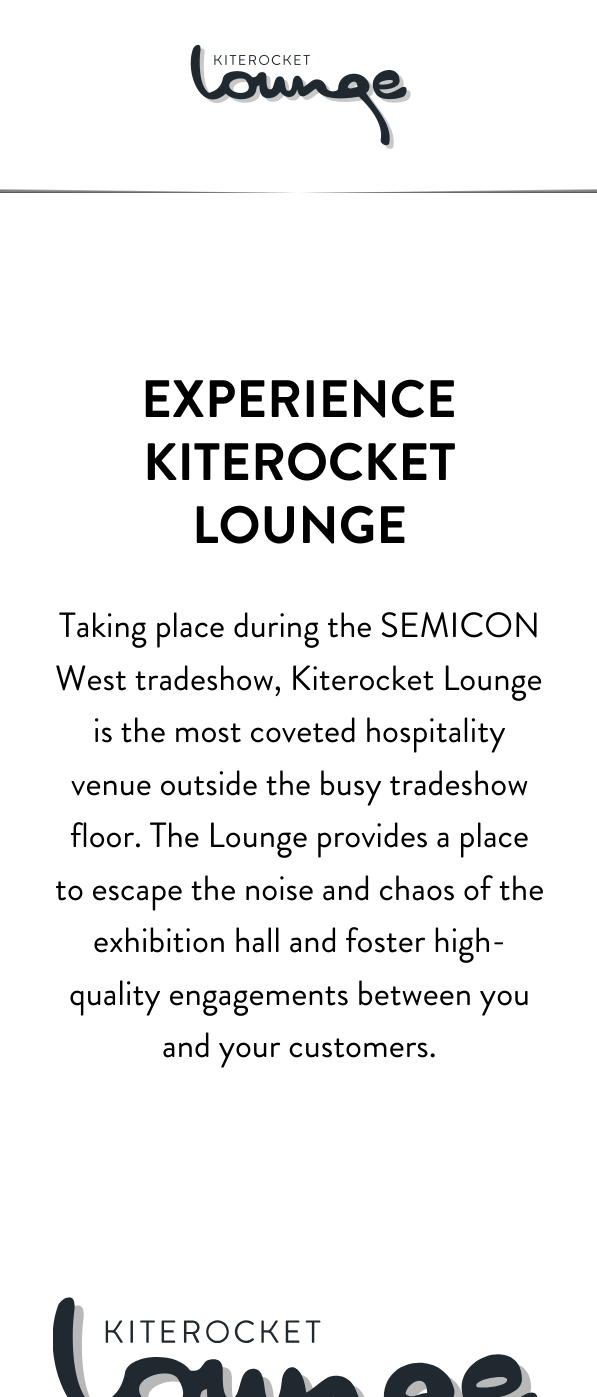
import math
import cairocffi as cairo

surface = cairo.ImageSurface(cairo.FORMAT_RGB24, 597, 1397)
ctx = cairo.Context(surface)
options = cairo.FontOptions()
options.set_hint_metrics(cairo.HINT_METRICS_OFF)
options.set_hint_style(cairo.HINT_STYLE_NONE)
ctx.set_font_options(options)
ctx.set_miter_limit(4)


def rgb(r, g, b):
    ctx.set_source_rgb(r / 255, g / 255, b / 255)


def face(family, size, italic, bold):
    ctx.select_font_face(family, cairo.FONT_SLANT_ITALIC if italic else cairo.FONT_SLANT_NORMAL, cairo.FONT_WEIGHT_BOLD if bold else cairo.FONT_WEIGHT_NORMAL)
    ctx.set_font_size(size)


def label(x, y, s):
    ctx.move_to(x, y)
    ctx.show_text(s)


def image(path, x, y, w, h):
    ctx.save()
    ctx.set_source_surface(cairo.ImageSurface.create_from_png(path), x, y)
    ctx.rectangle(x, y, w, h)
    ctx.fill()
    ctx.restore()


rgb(255, 255, 255)
ctx.paint()
image('image0.png', 190, 44, 221, 105)
ctx.save()
ctx.rectangle(0, 187, 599, 6)
ctx.clip()
rgb(179, 179, 179)
ctx.new_path()
ctx.move_to(-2, 192)
ctx.line_to(299, 193)
ctx.line_to(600, 192)
ctx.line_to(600, 194)
ctx.line_to(-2, 194)
ctx.close_path()
ctx.fill()
ctx.set_source_rgba(0, 0, 0, 0.3)
ctx.new_path()
ctx.move_to(-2, 189)
ctx.line_to(299, 193)
ctx.line_to(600, 189)
ctx.line_to(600, 194)
ctx.line_to(-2, 194)
ctx.close_path()
ctx.fill()
ctx.new_path()
ctx.move_to(-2, 190)
ctx.line_to(299, 193)
ctx.line_to(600, 190)
ctx.line_to(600, 194)
ctx.line_to(-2, 194)
ctx.close_path()
ctx.fill()
ctx.restore()
face('Brandon Grotesque', 52.5, 0, 1)
rgb(0, 0, 0)
label(141, 417, 'EXPERIENCE')
label(143, 480, 'KITEROCKET')
label(192, 543, 'LOUNGE')
face('Brandon Grotesque', 35, 0, 0)
label(59, 637, 'Taking place during the SEMICON')
label(55, 690, 'West tradeshow, Kiterocket Lounge')
label(93, 742, 'is the most coveted hospitality')
label(71, 795, 'venue outside the busy tradeshow')
label(70, 847, 'floor. The Lounge provides a place')
label(55, 900, 'to escape the noise and chaos of the')
label(93, 952, 'exhibition hall and foster high-')
label(69, 1005, 'quality engagements between you')
label(162, 1057, 'and your customers.')
image('image1.png', 53, 1297, 485, 100)
surface.write_to_png('render.png')
